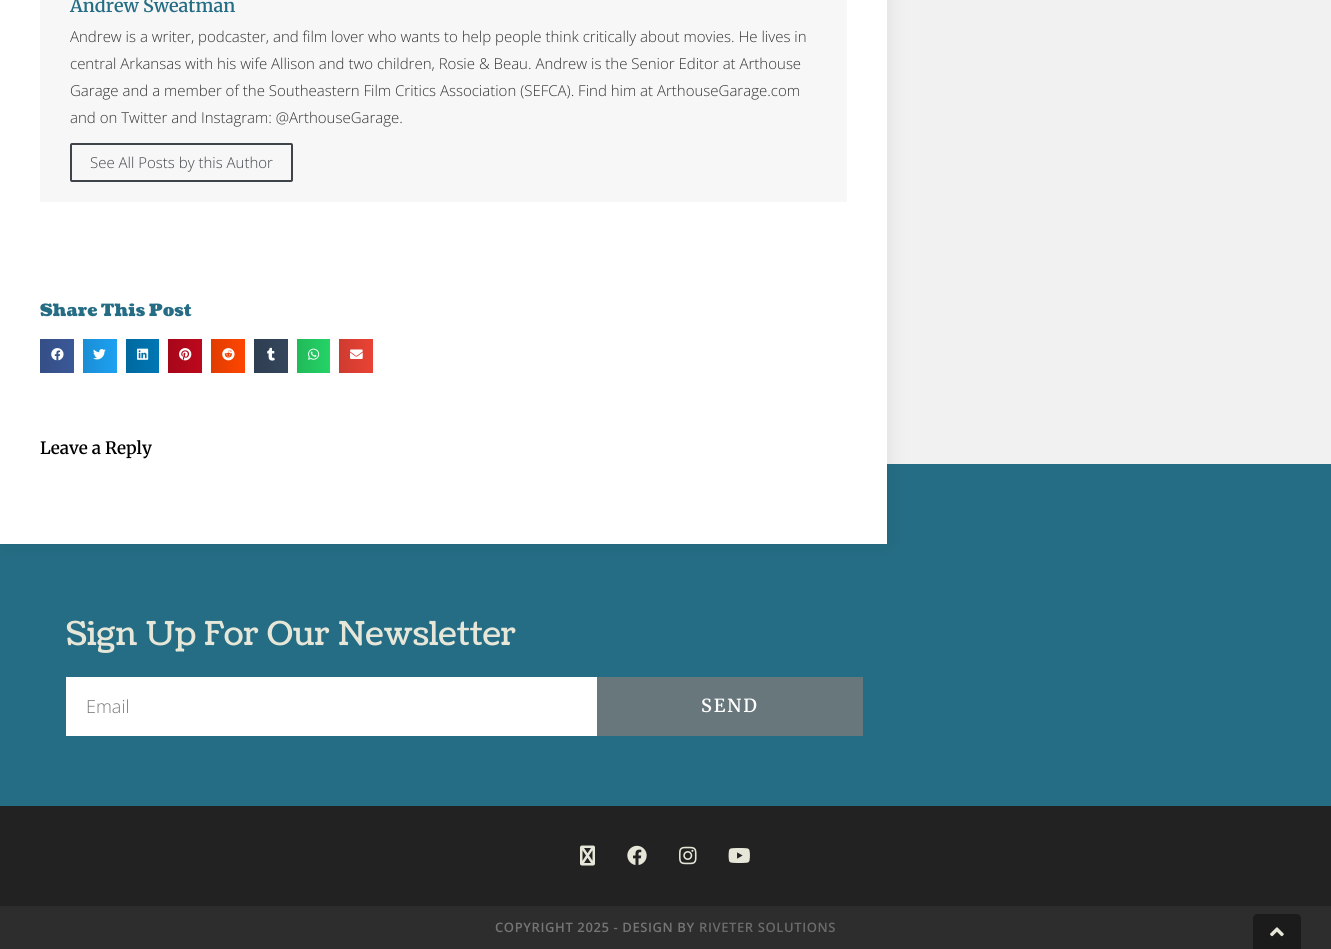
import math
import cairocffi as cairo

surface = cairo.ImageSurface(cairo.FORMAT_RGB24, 1331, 949)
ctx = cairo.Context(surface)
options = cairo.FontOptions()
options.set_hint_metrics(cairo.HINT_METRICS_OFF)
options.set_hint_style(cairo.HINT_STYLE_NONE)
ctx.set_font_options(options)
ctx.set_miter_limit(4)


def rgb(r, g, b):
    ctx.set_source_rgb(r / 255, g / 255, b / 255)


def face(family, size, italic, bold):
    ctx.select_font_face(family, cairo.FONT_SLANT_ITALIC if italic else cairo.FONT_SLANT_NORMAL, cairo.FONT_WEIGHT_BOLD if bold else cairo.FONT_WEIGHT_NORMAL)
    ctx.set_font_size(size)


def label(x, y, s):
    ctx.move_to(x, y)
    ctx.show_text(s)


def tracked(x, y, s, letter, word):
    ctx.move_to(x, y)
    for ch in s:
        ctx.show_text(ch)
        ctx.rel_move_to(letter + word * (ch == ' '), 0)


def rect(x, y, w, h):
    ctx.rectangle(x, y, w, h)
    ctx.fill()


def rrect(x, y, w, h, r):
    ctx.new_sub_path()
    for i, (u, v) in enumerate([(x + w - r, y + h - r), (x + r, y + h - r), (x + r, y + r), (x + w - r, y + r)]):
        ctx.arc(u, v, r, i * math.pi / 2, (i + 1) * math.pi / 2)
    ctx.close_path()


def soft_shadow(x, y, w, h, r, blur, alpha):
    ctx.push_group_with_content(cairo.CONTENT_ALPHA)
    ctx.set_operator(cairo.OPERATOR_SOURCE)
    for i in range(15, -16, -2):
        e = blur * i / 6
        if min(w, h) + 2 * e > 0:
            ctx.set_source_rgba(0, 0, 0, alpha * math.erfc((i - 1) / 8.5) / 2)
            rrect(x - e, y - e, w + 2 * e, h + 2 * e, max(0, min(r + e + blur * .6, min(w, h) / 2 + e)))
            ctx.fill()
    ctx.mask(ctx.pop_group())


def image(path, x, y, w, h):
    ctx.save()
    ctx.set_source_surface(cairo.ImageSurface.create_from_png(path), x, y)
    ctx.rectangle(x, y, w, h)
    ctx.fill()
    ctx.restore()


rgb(241, 241, 241)
ctx.paint()
rgb(37, 109, 133)
rect(0, 464, 1331, 342)
rgb(0, 0, 0)
soft_shadow(0, -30, 887, 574, 0, 10, 0.09)
rgb(255, 255, 255)
rect(0, 0, 887, 544)
rgb(247, 247, 247)
rect(40, 0, 807, 202)
face('Merriweather SemiBold', 18, 0, 0)
rgb(37, 109, 133)
label(70, 12, 'Andrew Sweatman')
face('Open Sans Light', 15, 0, 0)
rgb(51, 51, 51)
label(70, 42, 'Andrew is a writer, podcaster, and film lover who wants to help people think critically about movies. He lives in')
label(70, 69, 'central Arkansas with his wife Allison and two children, Rosie & Beau. Andrew is the Senior Editor at Arthouse')
label(70, 96, 'Garage and a member of the Southeastern Film Critics Association (SEFCA). Find him at ArthouseGarage.com')
label(70, 123, 'and on Twitter and Instagram: @ArthouseGarage.')
rrect(71, 144, 221, 37, 1)
rgb(63, 68, 75)
ctx.stroke()
label(90, 168, 'See All Posts by this Author')
face('Coustard Black', 17, 0, 0)
rgb(37, 109, 133)
label(40, 316, 'Share This Post')
gradient = cairo.LinearGradient(40, 356, 74, 356)
gradient.add_color_stop_rgba(0, 0.204, 0.306, 0.525, 1)
gradient.add_color_stop_rgba(1, 0.231, 0.349, 0.596, 1)
ctx.set_source(gradient)
rect(40, 339, 34, 34)
image('image0.png', 51, 348, 13, 13)
gradient = cairo.LinearGradient(83, 356, 117, 356)
gradient.add_color_stop_rgba(0, 0.102, 0.557, 0.835, 1)
gradient.add_color_stop_rgba(1, 0.114, 0.631, 0.949, 1)
ctx.set_source(gradient)
rect(83, 339, 34, 34)
image('image1.png', 93, 349, 13, 11)
gradient = cairo.LinearGradient(126, 356, 159, 356)
gradient.add_color_stop_rgba(0, 0, 0.412, 0.624, 1)
gradient.add_color_stop_rgba(1, 0, 0.467, 0.71, 1)
ctx.set_source(gradient)
rect(126, 339, 33, 34)
image('image2.png', 137, 348, 12, 12)
gradient = cairo.LinearGradient(168, 356, 202, 356)
gradient.add_color_stop_rgba(0, 0.651, 0.027, 0.098, 1)
gradient.add_color_stop_rgba(1, 0.741, 0.031, 0.11, 1)
ctx.set_source(gradient)
rect(168, 339, 34, 34)
image('image3.png', 179, 348, 13, 13)
gradient = cairo.LinearGradient(211, 356, 245, 356)
gradient.add_color_stop_rgba(0, 0.878, 0.239, 0, 1)
gradient.add_color_stop_rgba(1, 1, 0.271, 0, 1)
ctx.set_source(gradient)
rect(211, 339, 34, 34)
image('image4.png', 222, 348, 13, 13)
gradient = cairo.LinearGradient(254, 356, 288, 356)
gradient.add_color_stop_rgba(0, 0.184, 0.243, 0.318, 1)
gradient.add_color_stop_rgba(1, 0.208, 0.275, 0.361, 1)
ctx.set_source(gradient)
rect(254, 339, 34, 34)
image('image5.png', 267, 347, 8, 14)
gradient = cairo.LinearGradient(297, 356, 330, 356)
gradient.add_color_stop_rgba(0, 0.129, 0.729, 0.353, 1)
gradient.add_color_stop_rgba(1, 0.145, 0.827, 0.4, 1)
ctx.set_source(gradient)
rect(297, 339, 33, 34)
image('image6.png', 308, 348, 12, 12)
gradient = cairo.LinearGradient(339, 356, 373, 356)
gradient.add_color_stop_rgba(0, 0.808, 0.231, 0.184, 1)
gradient.add_color_stop_rgba(1, 0.918, 0.263, 0.208, 1)
ctx.set_source(gradient)
rect(339, 339, 34, 34)
image('image7.png', 350, 349, 13, 10)
face('Merriweather SemiBold', 17, 0, 0)
rgb(0, 0, 0)
label(40, 454, 'Leave a Reply')
face('Coustard', 33, 0, 0)
rgb(230, 231, 216)
label(66, 645, 'Sign Up For Our Newsletter')
rgb(255, 255, 255)
rect(66, 677, 531, 59)
face('Open Sans Light', 18, 0, 0)
rgb(121, 122, 124)
label(86, 713, 'Email')
rgb(104, 119, 124)
rect(597, 677, 266, 59)
face('Merriweather SemiBold', 18, 0, 0)
rgb(255, 255, 255)
tracked(701, 712, 'SEND', 2, 0)
rgb(34, 34, 34)
rect(0, 806, 1331, 100)
image('image8.png', 580, 845, 15, 21)
image('image9.png', 627, 845, 20, 20)
image('image10.png', 679, 846, 18, 19)
image('image11.png', 728, 848, 22, 15)
rgb(45, 45, 45)
rect(0, 906, 1331, 43)
face('Open Sans SemiBold', 13, 0, 0)
rgb(117, 117, 117)
tracked(495, 932, 'COPYRIGHT 2025 - DESIGN BY', 0.6, 0)
rgb(107, 107, 107)
tracked(699, 932, 'RIVETER SOLUTIONS', 0.6, 0)
rgb(27, 27, 27)
ctx.new_path()
ctx.move_to(1257, 914)
ctx.line_to(1297, 914)
ctx.curve_to(1299, 914, 1301, 916, 1301, 918)
ctx.line_to(1301, 949)
ctx.line_to(1253, 949)
ctx.line_to(1253, 918)
ctx.curve_to(1253, 916, 1255, 914, 1257, 914)
ctx.close_path()
ctx.fill()
image('image12.png', 1270, 927, 14, 10)
surface.write_to_png('render.png')
